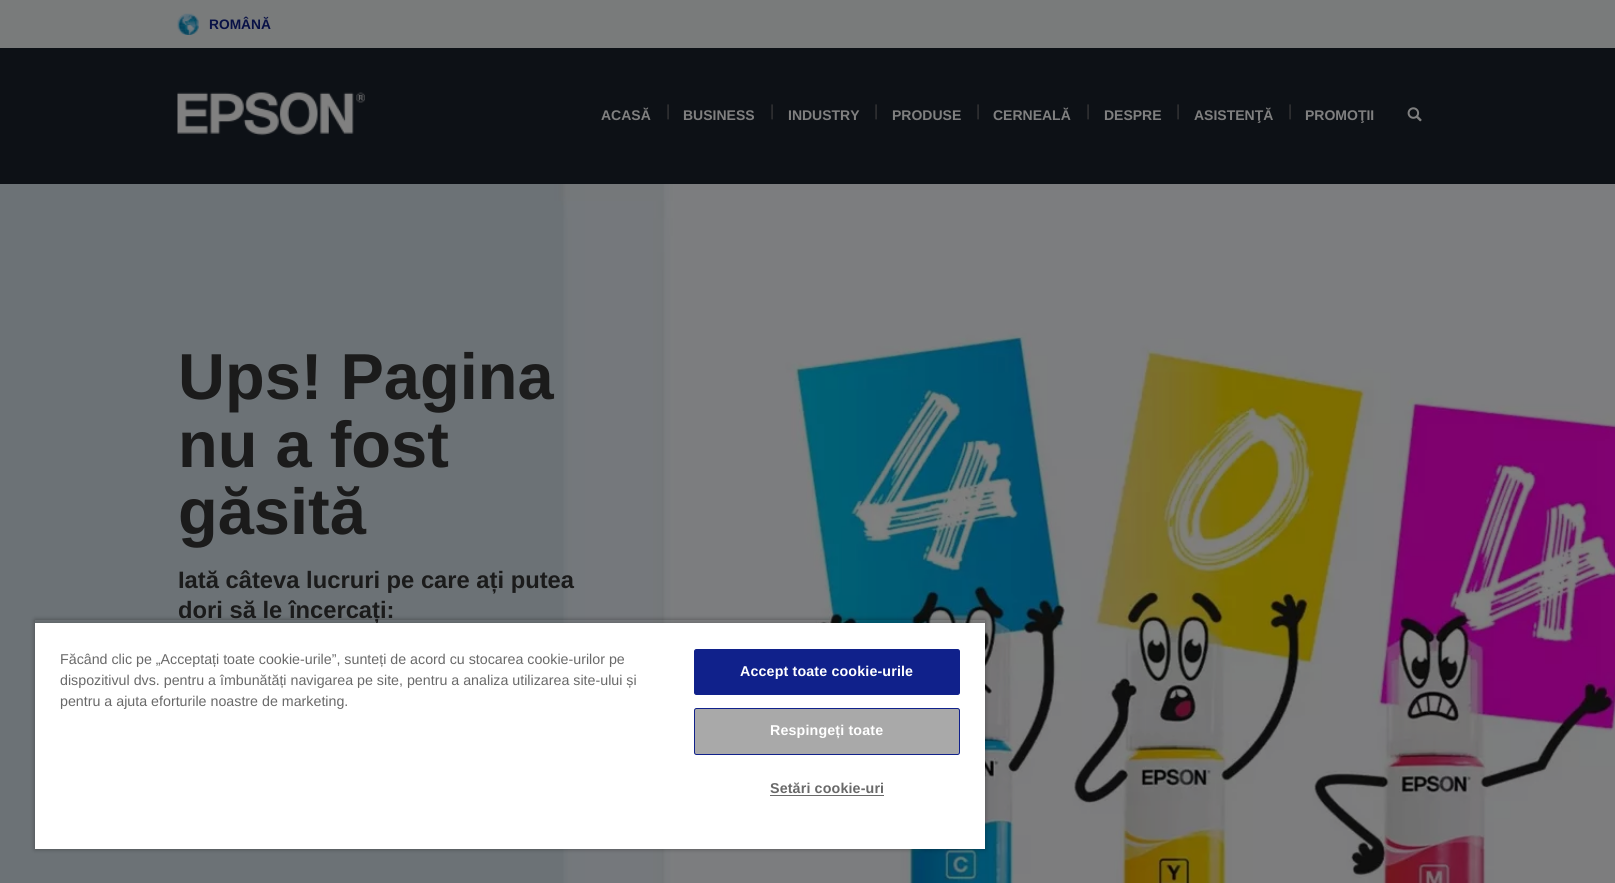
import math
import cairocffi as cairo

surface = cairo.ImageSurface(cairo.FORMAT_RGB24, 1615, 883)
ctx = cairo.Context(surface)
options = cairo.FontOptions()
options.set_hint_metrics(cairo.HINT_METRICS_OFF)
options.set_hint_style(cairo.HINT_STYLE_NONE)
ctx.set_font_options(options)
ctx.set_miter_limit(4)


def rgb(r, g, b):
    ctx.set_source_rgb(r / 255, g / 255, b / 255)


def face(family, size, italic, bold):
    ctx.select_font_face(family, cairo.FONT_SLANT_ITALIC if italic else cairo.FONT_SLANT_NORMAL, cairo.FONT_WEIGHT_BOLD if bold else cairo.FONT_WEIGHT_NORMAL)
    ctx.set_font_size(size)


def label(x, y, s):
    ctx.move_to(x, y)
    ctx.show_text(s)


def tracked(x, y, s, letter, word):
    ctx.move_to(x, y)
    for ch in s:
        ctx.show_text(ch)
        ctx.rel_move_to(letter + word * (ch == ' '), 0)


def rect(x, y, w, h):
    ctx.rectangle(x, y, w, h)
    ctx.fill()


def rrect(x, y, w, h, r):
    ctx.new_sub_path()
    for i, (u, v) in enumerate([(x + w - r, y + h - r), (x + r, y + h - r), (x + r, y + r), (x + w - r, y + r)]):
        ctx.arc(u, v, r, i * math.pi / 2, (i + 1) * math.pi / 2)
    ctx.close_path()


def soft_shadow(x, y, w, h, r, blur, alpha):
    ctx.push_group_with_content(cairo.CONTENT_ALPHA)
    ctx.set_operator(cairo.OPERATOR_SOURCE)
    for i in range(15, -16, -2):
        e = blur * i / 6
        if min(w, h) + 2 * e > 0:
            ctx.set_source_rgba(0, 0, 0, alpha * math.erfc((i - 1) / 8.5) / 2)
            rrect(x - e, y - e, w + 2 * e, h + 2 * e, max(0, min(r + e + blur * .6, min(w, h) / 2 + e)))
            ctx.fill()
    ctx.mask(ctx.pop_group())


def image(path, x, y, w, h):
    ctx.save()
    ctx.set_source_surface(cairo.ImageSurface.create_from_png(path), x, y)
    ctx.rectangle(x, y, w, h)
    ctx.fill()
    ctx.restore()


rgb(255, 255, 255)
ctx.paint()
rgb(121, 123, 123)
rect(0, 0, 1615, 48)
image('image0.png', 177, 13, 22, 22)
face('Liberation Sans', 13.75, 0, 1)
rgb(8, 17, 70)
label(209, 29, 'ROMÂNĂ')
rgb(13, 17, 22)
rect(0, 48, 1615, 136)
image('image1.png', 177, 92, 188, 44)
face('Liberation Sans', 14, 0, 1)
rgb(128, 128, 128)
label(601, 120, 'ACASĂ')
face('Liberation Sans', 16, 0, 0)
rgb(56, 56, 56)
label(666, 116, '|')
face('Liberation Sans', 14, 0, 1)
rgb(128, 128, 128)
label(683, 120, 'BUSINESS')
face('Liberation Sans', 16, 0, 0)
rgb(56, 56, 56)
label(770, 116, '|')
face('Liberation Sans', 14, 0, 1)
rgb(128, 128, 128)
label(788, 120, 'INDUSTRY')
face('Liberation Sans', 16, 0, 0)
rgb(56, 56, 56)
label(874, 116, '|')
face('Liberation Sans', 14, 0, 1)
rgb(128, 128, 128)
label(892, 120, 'PRODUSE')
face('Liberation Sans', 16, 0, 0)
rgb(56, 56, 56)
label(976, 116, '|')
face('Liberation Sans', 14, 0, 1)
rgb(128, 128, 128)
label(993, 120, 'CERNEALĂ')
face('Liberation Sans', 16, 0, 0)
rgb(56, 56, 56)
label(1086, 116, '|')
face('Liberation Sans', 14, 0, 1)
rgb(128, 128, 128)
label(1104, 120, 'DESPRE')
face('Liberation Sans', 16, 0, 0)
rgb(56, 56, 56)
label(1176, 116, '|')
face('Liberation Sans', 14, 0, 1)
rgb(128, 128, 128)
label(1194, 120, 'ASISTENŢĂ')
face('Liberation Sans', 16, 0, 0)
rgb(56, 56, 56)
label(1288, 116, '|')
face('Liberation Sans', 14, 0, 1)
rgb(128, 128, 128)
label(1305, 120, 'PROMOŢII')
image('image2.png', 1407, 107, 15, 15)
image('image3.png', 0, 184, 1615, 699)
face('Liberation Sans', 65, 0, 1)
rgb(27, 27, 27)
label(178, 399, 'Ups! Pagina')
label(178, 467, 'nu a fost')
label(178, 534, 'găsită')
face('Liberation Sans', 23.75, 0, 1)
label(178, 588, 'Iată câteva lucruri pe care ați putea')
label(178, 618, 'dori să le încercați:')
ctx.save()
ctx.set_fill_rule(cairo.FILL_RULE_EVEN_ODD)
ctx.new_path()
ctx.move_to(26, 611)
ctx.line_to(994, 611)
ctx.line_to(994, 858)
ctx.line_to(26, 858)
ctx.close_path()
ctx.move_to(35, 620)
ctx.line_to(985, 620)
ctx.line_to(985, 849)
ctx.line_to(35, 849)
ctx.close_path()
ctx.clip()
rgb(0, 0, 0)
soft_shadow(35, 620, 950, 229, 0, 2.5, 0.35)
ctx.restore()
ctx.save()
ctx.rectangle(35, 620, 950, 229)
ctx.clip()
rgb(0, 0, 0)
soft_shadow(35, 623, 950, 226, 0, 2.5, 0.2)
ctx.restore()
rgb(255, 255, 255)
rect(35, 623, 950, 226)
face('Liberation Sans', 14.25, 0, 0)
rgb(105, 105, 105)
label(60, 664, 'Făcând clic pe „Acceptați toate cookie-urile”, sunteți de acord cu stocarea cookie-urilor pe')
label(60, 685, 'dispozitivul dvs. pentru a îmbunătăți navigarea pe site, pentru a analiza utilizarea site-ului și')
label(60, 706, 'pentru a ajuta eforturile noastre de marketing.')
rgb(16, 33, 139)
rrect(694.5, 649.5, 265, 45, 2)
ctx.fill_preserve()
ctx.set_line_width(1)
ctx.stroke()
face('Liberation Sans', 14.25, 0, 1)
rgb(255, 255, 255)
tracked(740, 676, 'Accept toate cookie-urile', 0.15, 0)
rgb(169, 169, 169)
rrect(694.5, 708.5, 265, 46, 2)
ctx.fill_preserve()
rgb(16, 33, 139)
ctx.stroke()
rgb(255, 255, 255)
tracked(770, 735, 'Respingeți toate', 0.15, 0)
rgb(105, 105, 105)
tracked(770, 793, 'Setări cookie-uri', 0.15, 0)
rect(770, 795, 114, 1)
surface.write_to_png('render.png')
